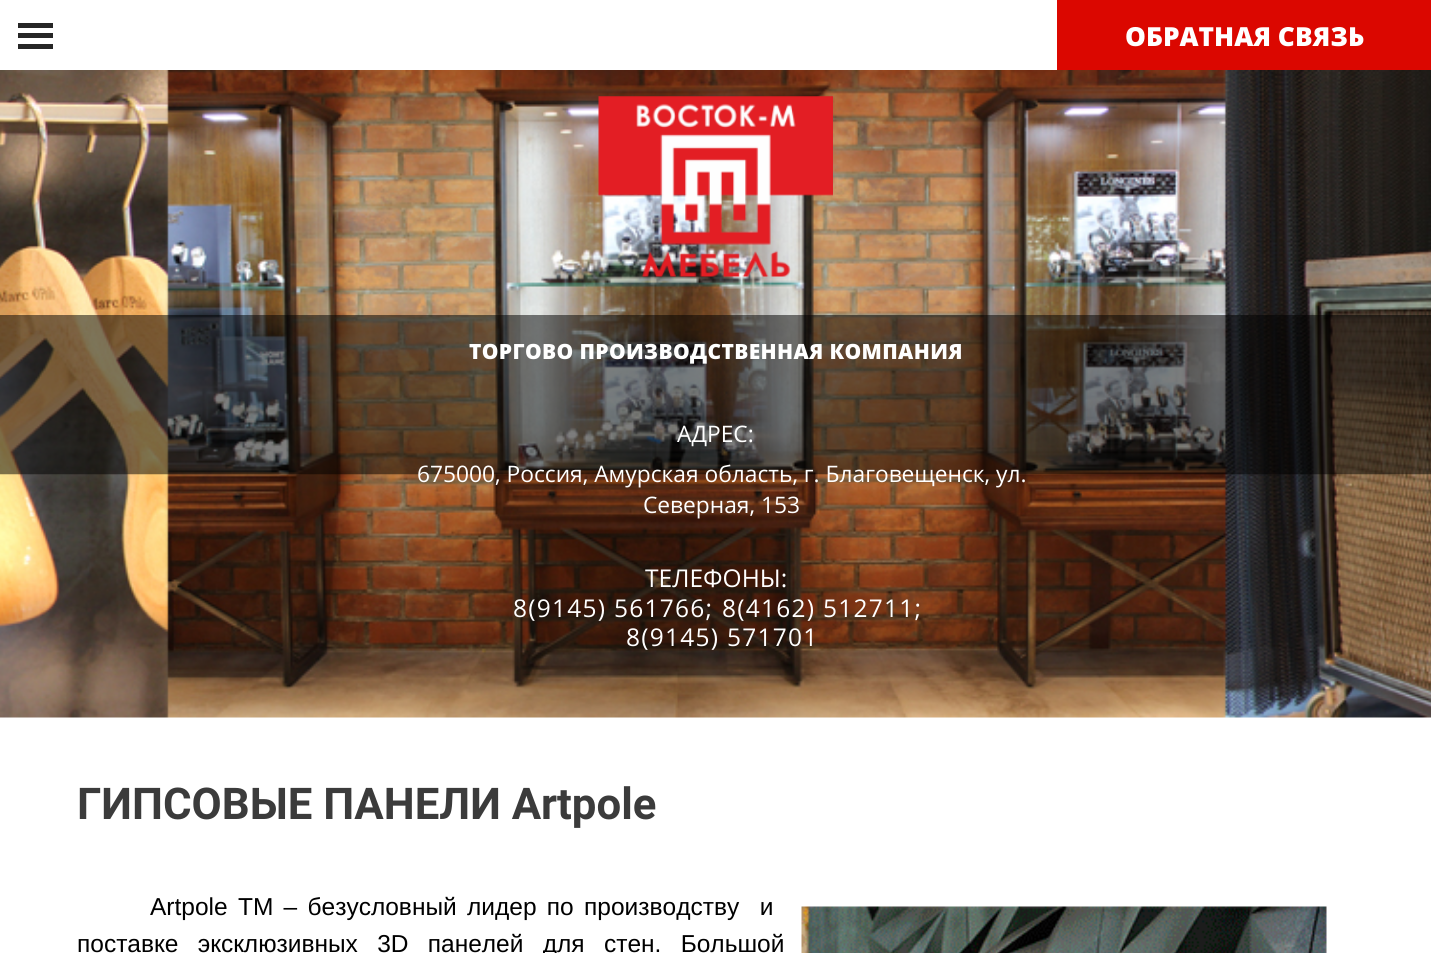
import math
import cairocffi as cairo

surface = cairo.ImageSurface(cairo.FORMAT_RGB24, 1431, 953)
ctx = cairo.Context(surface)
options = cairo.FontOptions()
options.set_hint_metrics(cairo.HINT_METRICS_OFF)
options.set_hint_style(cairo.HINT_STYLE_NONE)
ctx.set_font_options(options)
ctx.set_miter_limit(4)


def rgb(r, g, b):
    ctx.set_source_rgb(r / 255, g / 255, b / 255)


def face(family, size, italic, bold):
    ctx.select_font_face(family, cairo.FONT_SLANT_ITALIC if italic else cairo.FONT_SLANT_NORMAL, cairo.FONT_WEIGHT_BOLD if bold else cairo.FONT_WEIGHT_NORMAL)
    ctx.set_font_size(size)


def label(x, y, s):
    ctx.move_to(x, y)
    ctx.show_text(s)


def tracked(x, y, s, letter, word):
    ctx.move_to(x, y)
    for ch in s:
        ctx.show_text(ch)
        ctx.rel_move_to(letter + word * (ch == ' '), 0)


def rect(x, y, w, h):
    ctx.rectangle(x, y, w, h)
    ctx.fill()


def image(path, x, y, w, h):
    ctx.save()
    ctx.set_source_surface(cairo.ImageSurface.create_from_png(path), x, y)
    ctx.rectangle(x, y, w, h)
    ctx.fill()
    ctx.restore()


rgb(255, 255, 255)
ctx.paint()
rgb(38, 38, 38)
rect(18, 23, 35, 5)
rect(18, 33, 35, 5)
rect(18, 44, 35, 5)
rgb(219, 7, 0)
rect(1057, 0, 374, 70)
face('Open Sans ExtraBold', 26.25, 0, 0)
rgb(255, 255, 255)
label(1125, 46, 'ОБРАТНАЯ СВЯЗЬ')
image('image0.png', 0, 70, 1431, 648)
image('image1.png', 598, 96, 235, 181)
face('Open Sans ExtraBold', 21, 0, 0)
tracked(469, 359, 'ТОРГОВО ПРОИЗВОДСТВЕННАЯ КОМПАНИЯ', 0.35, 0)
face('Open Sans', 22.75, 0, 0)
label(677, 442, 'АДРЕС:')
label(417, 482, '675000, Россия, Амурская область, г. Благовещенск, ул.')
label(643, 513, 'Северная, 153')
face('Open Sans', 24.5, 0, 0)
label(645, 587, 'ТЕЛЕФОНЫ:')
tracked(513, 617, '8(9145) 561766;', 1.25, 0)
tracked(722, 617, '8(4162) 512711;', 1.25, 0)
tracked(626, 646, '8(9145) 571701', 1.25, 0)
face('Roboto', 43.75, 0, 1)
rgb(59, 59, 59)
label(77, 819, 'ГИПСОВЫЕ ПАНЕЛИ Artpole')
face('Liberation Sans', 24.5, 0, 0)
rgb(0, 0, 0)
tracked(150, 915, 'Artpole TM – безусловный лидер по производству  и', 0, 3.5)
image('image2.png', 801, 906, 526, 47)
tracked(77, 952, 'поставке эксклюзивных 3D панелей для стен. Большой', 0, 12.5)
surface.write_to_png('render.png')
